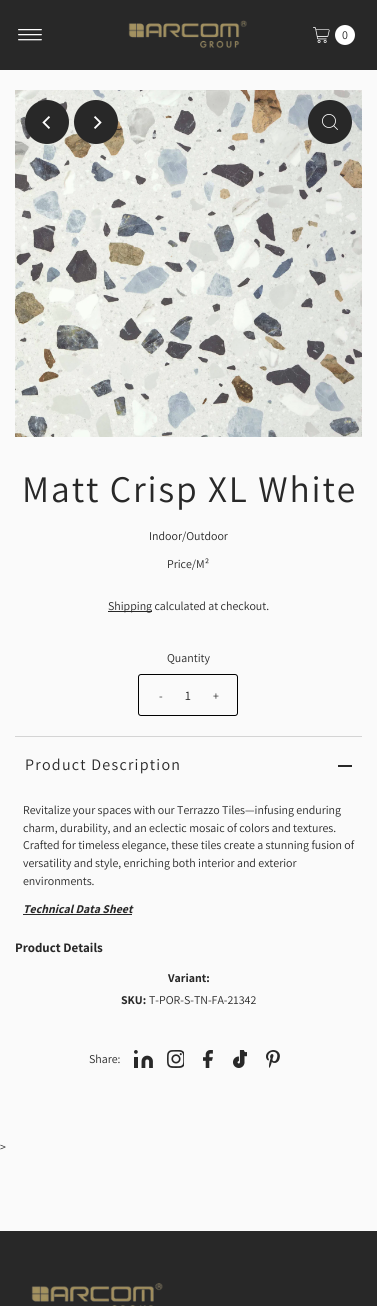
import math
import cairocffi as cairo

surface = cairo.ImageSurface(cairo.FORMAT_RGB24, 377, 1306)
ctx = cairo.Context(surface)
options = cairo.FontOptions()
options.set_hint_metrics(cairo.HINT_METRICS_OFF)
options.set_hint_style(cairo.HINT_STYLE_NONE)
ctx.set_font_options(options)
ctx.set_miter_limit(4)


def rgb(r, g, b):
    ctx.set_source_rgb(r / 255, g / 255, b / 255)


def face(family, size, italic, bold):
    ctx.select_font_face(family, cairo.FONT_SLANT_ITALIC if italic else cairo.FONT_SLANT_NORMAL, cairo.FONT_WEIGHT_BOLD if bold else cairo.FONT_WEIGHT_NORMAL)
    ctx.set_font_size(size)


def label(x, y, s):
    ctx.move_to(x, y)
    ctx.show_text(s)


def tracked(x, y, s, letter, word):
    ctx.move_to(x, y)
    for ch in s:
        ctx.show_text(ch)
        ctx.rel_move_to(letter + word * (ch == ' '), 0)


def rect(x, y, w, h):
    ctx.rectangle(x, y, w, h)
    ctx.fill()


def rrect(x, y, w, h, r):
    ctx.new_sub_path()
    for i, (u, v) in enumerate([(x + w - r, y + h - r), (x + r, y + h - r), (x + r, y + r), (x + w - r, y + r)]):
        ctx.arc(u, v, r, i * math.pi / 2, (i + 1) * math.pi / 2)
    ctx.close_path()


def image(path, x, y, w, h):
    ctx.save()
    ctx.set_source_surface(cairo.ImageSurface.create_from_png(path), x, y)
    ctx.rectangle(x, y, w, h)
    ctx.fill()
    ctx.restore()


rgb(250, 250, 250)
ctx.paint()
rgb(40, 40, 40)
rect(0, 0, 377, 70)
image('image0.png', 18, 29, 24, 12)
image('image1.png', 128, 20, 119, 28)
image('image2.png', 313, 27, 17, 16)
rgb(255, 255, 255)
ctx.arc(345, 35, 10, 0, 2 * math.pi)
ctx.fill()
face('Assistant', 12, 0, 0)
rgb(40, 40, 40)
label(342, 39, '0')
image('image3.png', 15, 90, 347, 347)
ctx.arc(330, 122, 22, 0, 2 * math.pi)
ctx.fill()
image('image4.png', 322, 114, 16, 16)
ctx.arc(47, 122, 22, 0, 2 * math.pi)
ctx.fill()
image('image5.png', 42, 116, 8, 13)
ctx.arc(96, 122, 22, 0, 2 * math.pi)
ctx.fill()
image('image6.png', 94, 116, 8, 13)
face('Assistant', 37.5, 0, 0)
tracked(22, 502, 'Matt Crisp XL White', 1.9, 0)
face('Assistant', 11.9, 0, 0)
label(149, 540, 'Indoor/Outdoor')
label(167, 568, 'Price/M²')
rect(108, 611, 44, 1)
label(108, 610, 'Shipping calculated at checkout.')
label(167, 662, 'Quantity')
rrect(138.5, 674.5, 99, 41, 2.5)
rgb(0, 0, 0)
ctx.set_line_width(1)
ctx.stroke()
rgb(40, 40, 40)
tracked(159, 700, '-', 1, 0)
face('Assistant', 13, 0, 0)
label(185, 700, '1')
face('Assistant', 11.9, 0, 0)
tracked(213, 700, '+', 1, 0)
rgb(212, 212, 212)
rect(15, 736, 347, 1)
face('Assistant', 16, 0, 0)
rgb(40, 40, 40)
tracked(25, 770, 'Product Description', 1.25, 0)
rect(338, 765, 14, 2)
face('Assistant', 11.9, 0, 0)
label(23, 814, 'Revitalize your spaces with our Terrazzo Tiles—infusing enduring')
label(23, 832, 'charm, durability, and an eclectic mosaic of colors and textures.')
label(23, 849, 'Crafted for timeless elegance, these tiles create a stunning fusion of')
label(23, 867, 'versatility and style, enriching both interior and exterior')
label(23, 885, 'environments.')
face('Assistant', 11.9, 1, 1)
label(23, 913, 'Technical Data Sheet')
rect(23, 914, 109, 1)
face('Assistant', 13, 0, 1)
label(15, 952, 'Product Details')
face('Assistant', 11.9, 0, 1)
label(168, 982, 'Variant:')
label(121, 1004, 'SKU:')
face('Assistant', 11.9, 0, 0)
label(149, 1004, 'T-POR-S-TN-FA-21342')
label(89, 1063, 'Share:')
image('image7.png', 134, 1050, 19, 18)
image('image8.png', 167, 1050, 17, 18)
image('image9.png', 203, 1050, 10, 18)
image('image10.png', 233, 1050, 14, 18)
image('image11.png', 266, 1050, 14, 18)
label(0, 1151, '>')
rect(0, 1231, 377, 75)
image('image12.png', 31, 1283, 132, 23)
surface.write_to_png('render.png')
